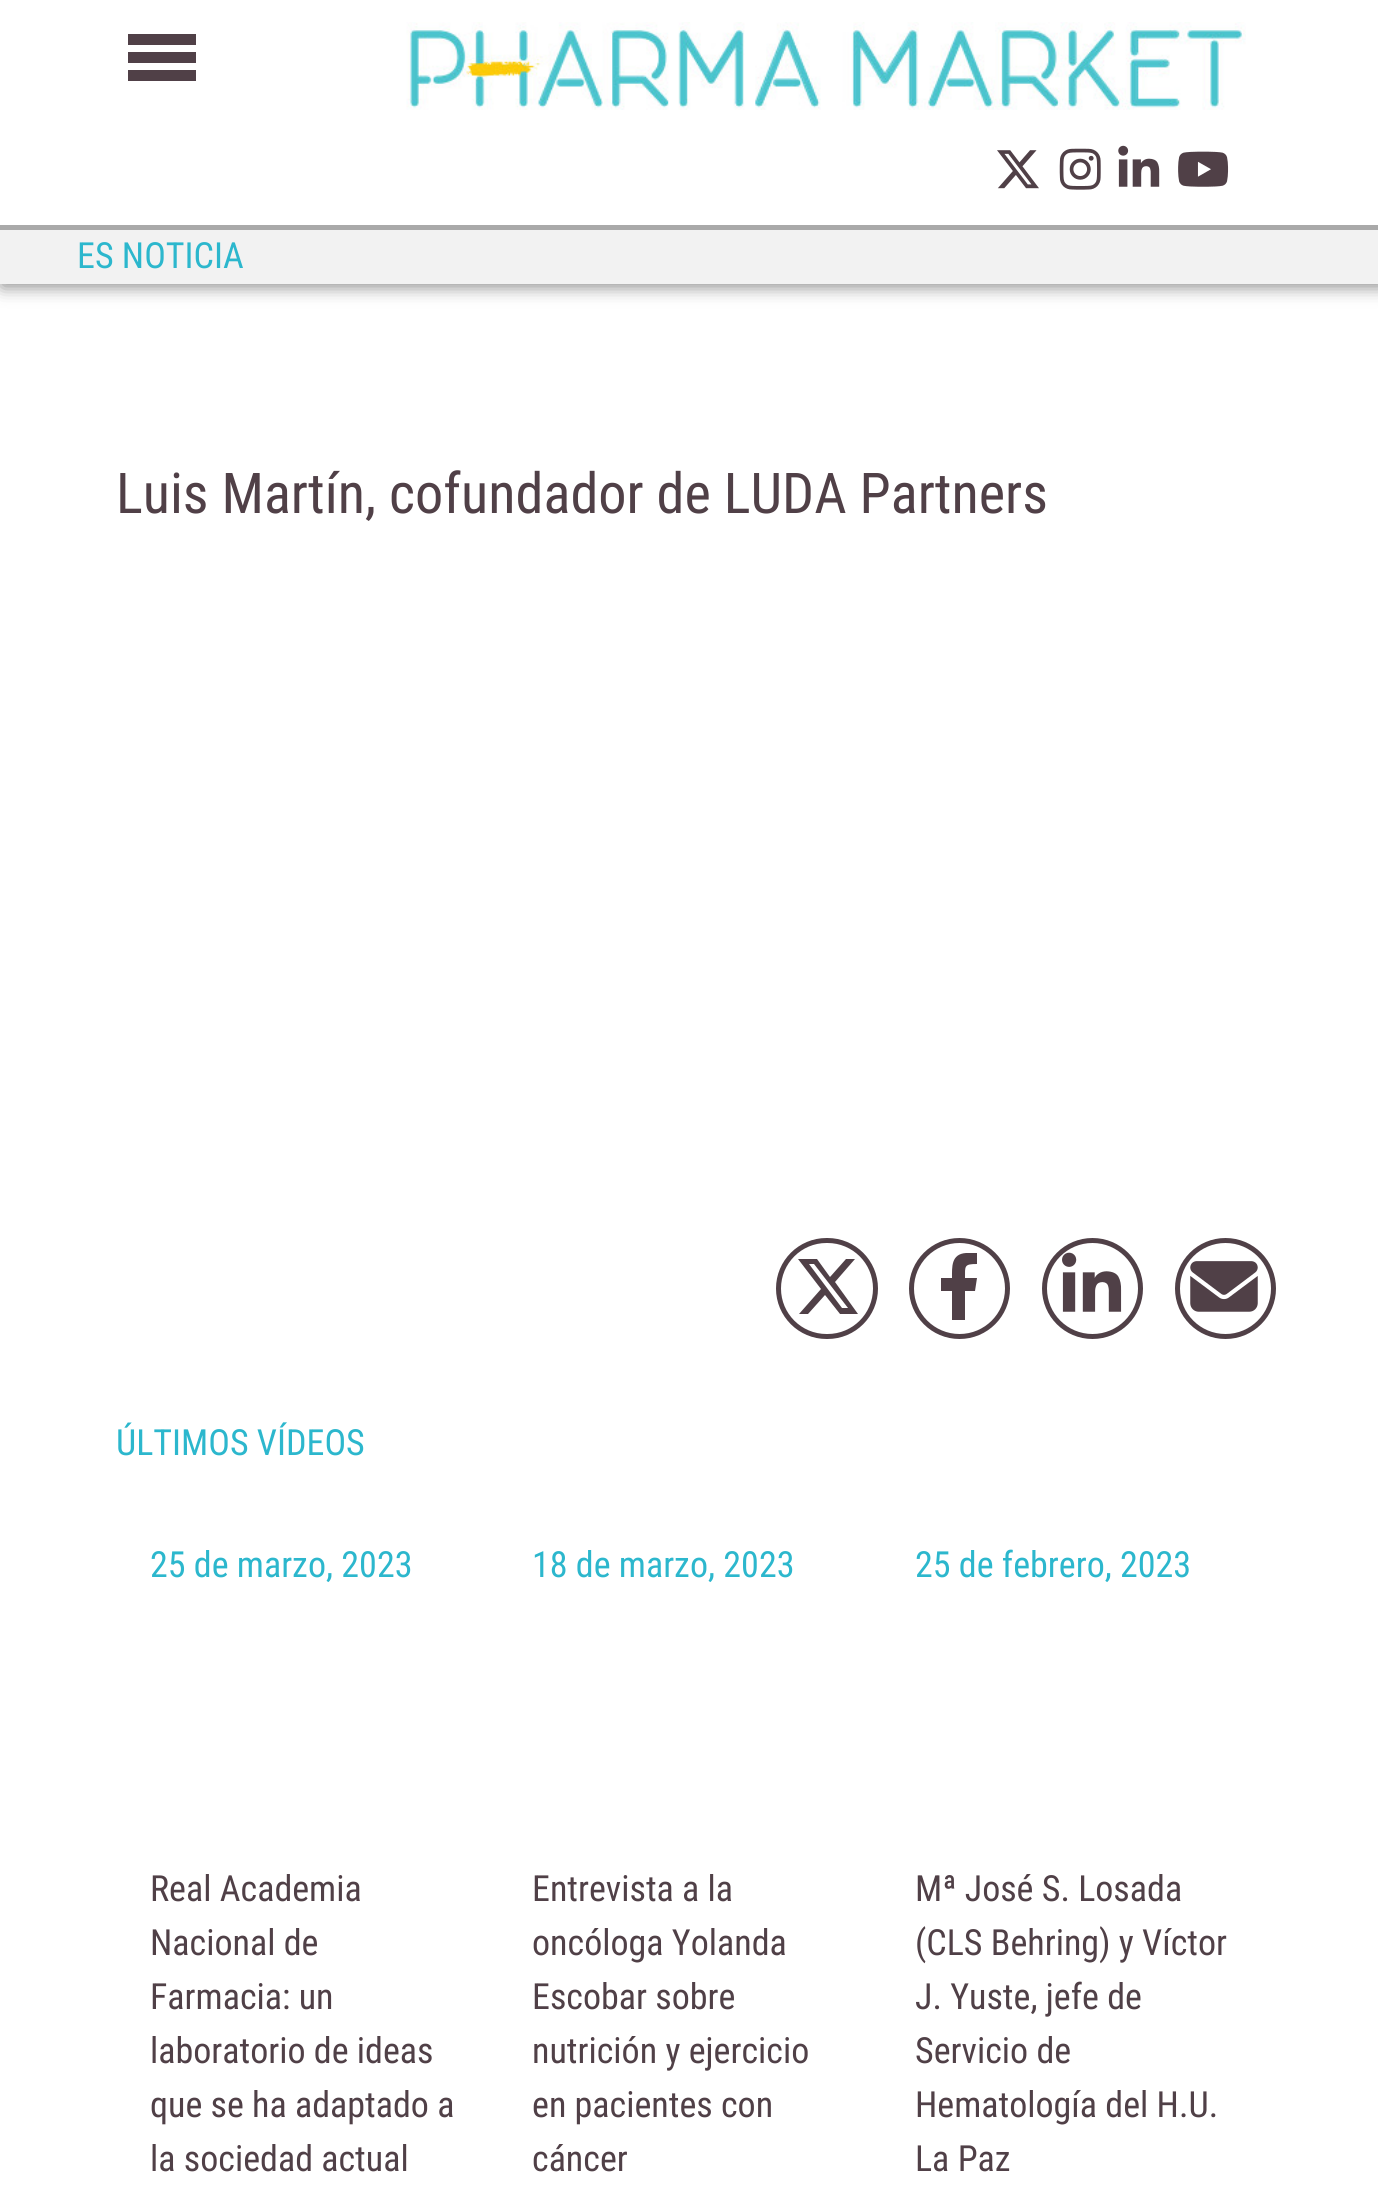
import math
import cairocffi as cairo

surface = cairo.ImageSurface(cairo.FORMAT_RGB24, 1378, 2192)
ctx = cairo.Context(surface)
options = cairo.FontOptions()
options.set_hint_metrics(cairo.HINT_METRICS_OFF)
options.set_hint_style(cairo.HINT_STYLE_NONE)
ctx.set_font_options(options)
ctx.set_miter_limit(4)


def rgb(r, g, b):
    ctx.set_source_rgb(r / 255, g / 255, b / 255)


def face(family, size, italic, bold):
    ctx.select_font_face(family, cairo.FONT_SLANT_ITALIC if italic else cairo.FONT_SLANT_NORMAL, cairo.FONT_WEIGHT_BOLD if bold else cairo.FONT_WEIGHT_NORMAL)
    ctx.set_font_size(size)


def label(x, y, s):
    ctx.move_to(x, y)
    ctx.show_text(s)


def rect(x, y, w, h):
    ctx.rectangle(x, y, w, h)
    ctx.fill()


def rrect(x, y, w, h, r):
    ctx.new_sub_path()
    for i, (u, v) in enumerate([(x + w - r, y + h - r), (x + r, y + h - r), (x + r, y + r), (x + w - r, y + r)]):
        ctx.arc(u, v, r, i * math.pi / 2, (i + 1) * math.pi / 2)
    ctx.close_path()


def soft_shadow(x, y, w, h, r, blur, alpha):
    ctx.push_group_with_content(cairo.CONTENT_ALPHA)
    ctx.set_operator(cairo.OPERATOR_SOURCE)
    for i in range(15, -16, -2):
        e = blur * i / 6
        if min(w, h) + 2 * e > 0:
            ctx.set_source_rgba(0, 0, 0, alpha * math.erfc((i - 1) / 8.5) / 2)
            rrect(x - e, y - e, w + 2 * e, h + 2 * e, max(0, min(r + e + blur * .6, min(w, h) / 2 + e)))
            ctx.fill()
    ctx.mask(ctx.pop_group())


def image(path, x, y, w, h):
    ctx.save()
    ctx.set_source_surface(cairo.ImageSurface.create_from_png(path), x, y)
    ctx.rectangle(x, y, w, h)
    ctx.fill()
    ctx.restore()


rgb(255, 255, 255)
ctx.paint()
rgb(0, 0, 0)
soft_shadow(2, 2, 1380, 284, 0, 9, 0.5)
rgb(255, 255, 255)
rect(0, 0, 1378, 225)
rgb(80, 64, 71)
rect(128, 34, 68, 11)
rect(128, 52, 68, 11)
rect(128, 70, 68, 11)
image('image0.png', 406, 22, 840, 88)
image('image1.png', 997, 150, 42, 39)
image('image2.png', 1059, 148, 42, 42)
image('image3.png', 1118, 145, 42, 42)
image('image4.png', 1178, 151, 51, 36)
rgb(242, 242, 242)
rect(0, 230, 1378, 54)
rgb(169, 169, 169)
rect(0, 225, 1378, 5)
face('Roboto Condensed', 36, 0, 0)
rgb(44, 183, 205)
label(77, 268, 'ES NOTICIA')
face('Roboto Condensed', 56.25, 0, 0)
rgb(80, 64, 71)
label(116, 513, 'Luis Martín, cofundador de LUDA Partners')
rrect(778.5, 1240.5, 97, 96, 48)
ctx.set_line_width(5)
ctx.stroke()
ctx.new_path()
ctx.move_to(846, 1259)
ctx.line_to(855, 1259)
ctx.line_to(835, 1282)
ctx.line_to(858, 1314)
ctx.line_to(840, 1314)
ctx.line_to(825, 1295)
ctx.line_to(808, 1314)
ctx.line_to(799, 1314)
ctx.line_to(821, 1289)
ctx.line_to(798, 1259)
ctx.line_to(817, 1259)
ctx.line_to(830, 1277)
ctx.close_path()
ctx.move_to(842, 1308)
ctx.line_to(848, 1308)
ctx.line_to(814, 1264)
ctx.line_to(809, 1264)
ctx.close_path()
ctx.fill()
ctx.arc(959.5, 1288.5, 48, 0, 2 * math.pi)
ctx.stroke()
ctx.new_path()
ctx.move_to(975, 1291)
ctx.line_to(977, 1278)
ctx.line_to(965, 1278)
ctx.curve_to(965, 1266, 964, 1264, 977, 1264)
ctx.line_to(977, 1253)
ctx.line_to(966, 1253)
ctx.curve_to(951, 1254, 952, 1267, 952, 1278)
ctx.line_to(941, 1278)
ctx.line_to(941, 1291)
ctx.line_to(952, 1291)
ctx.line_to(952, 1320)
ctx.line_to(965, 1320)
ctx.line_to(965, 1291)
ctx.close_path()
ctx.fill()
ctx.arc(1092.5, 1288.5, 48, 0, 2 * math.pi)
ctx.stroke()
image('image5.png', 1062, 1252, 60, 60)
ctx.arc(1225.5, 1288.5, 48, 0, 2 * math.pi)
ctx.stroke()
image('image6.png', 1190, 1261, 68, 51)
face('Roboto Condensed', 36, 0, 0)
rgb(44, 183, 205)
label(116, 1455, 'ÚLTIMOS VÍDEOS')
label(150, 1577, '25 de marzo, 2023')
rgb(80, 64, 71)
label(150, 1901, 'Real Academia')
label(150, 1955, 'Nacional de')
label(150, 2009, 'Farmacia: un')
label(150, 2063, 'laboratorio de ideas')
label(150, 2117, 'que se ha adaptado a')
label(150, 2171, 'la sociedad actual')
rgb(44, 183, 205)
label(532, 1577, '18 de marzo, 2023')
rgb(80, 64, 71)
label(532, 1901, 'Entrevista a la')
label(532, 1955, 'oncóloga Yolanda')
label(532, 2009, 'Escobar sobre')
label(532, 2063, 'nutrición y ejercicio')
label(532, 2117, 'en pacientes con')
label(532, 2171, 'cáncer')
rgb(44, 183, 205)
label(915, 1577, '25 de febrero, 2023')
rgb(80, 64, 71)
label(915, 1901, 'Mª José S. Losada')
label(915, 1955, '(CLS Behring) y Víctor')
label(915, 2009, 'J. Yuste, jefe de')
label(915, 2063, 'Servicio de')
label(915, 2117, 'Hematología del H.U.')
label(915, 2171, 'La Paz')
surface.write_to_png('render.png')
